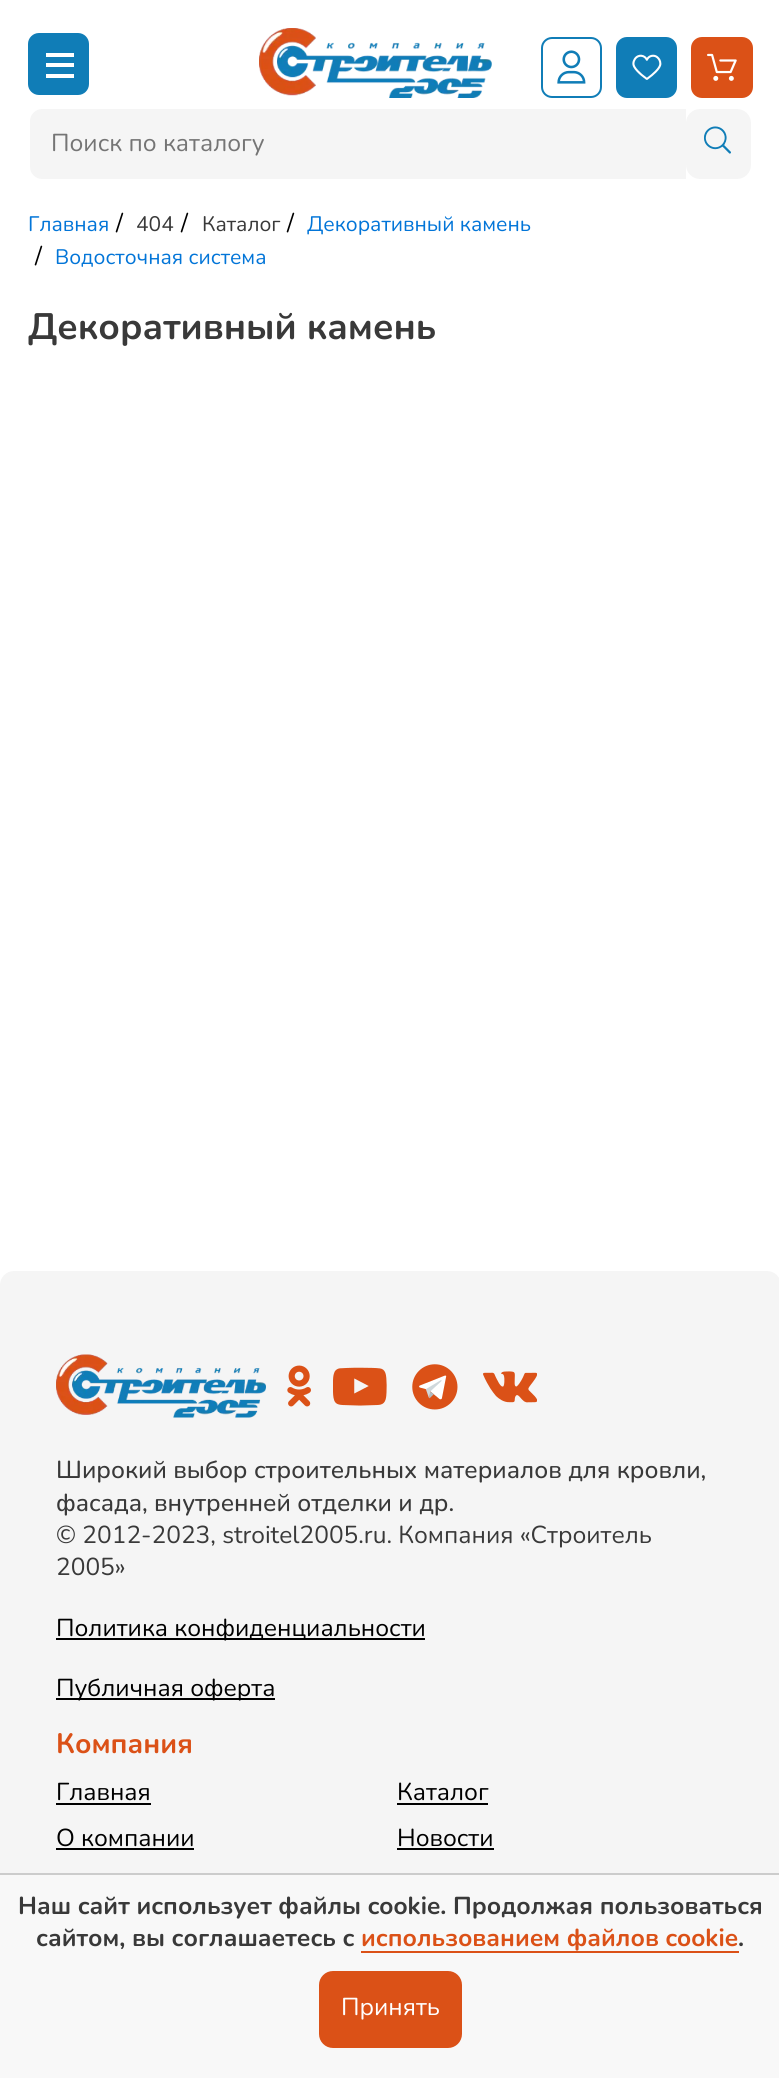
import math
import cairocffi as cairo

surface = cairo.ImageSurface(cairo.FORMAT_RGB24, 779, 2078)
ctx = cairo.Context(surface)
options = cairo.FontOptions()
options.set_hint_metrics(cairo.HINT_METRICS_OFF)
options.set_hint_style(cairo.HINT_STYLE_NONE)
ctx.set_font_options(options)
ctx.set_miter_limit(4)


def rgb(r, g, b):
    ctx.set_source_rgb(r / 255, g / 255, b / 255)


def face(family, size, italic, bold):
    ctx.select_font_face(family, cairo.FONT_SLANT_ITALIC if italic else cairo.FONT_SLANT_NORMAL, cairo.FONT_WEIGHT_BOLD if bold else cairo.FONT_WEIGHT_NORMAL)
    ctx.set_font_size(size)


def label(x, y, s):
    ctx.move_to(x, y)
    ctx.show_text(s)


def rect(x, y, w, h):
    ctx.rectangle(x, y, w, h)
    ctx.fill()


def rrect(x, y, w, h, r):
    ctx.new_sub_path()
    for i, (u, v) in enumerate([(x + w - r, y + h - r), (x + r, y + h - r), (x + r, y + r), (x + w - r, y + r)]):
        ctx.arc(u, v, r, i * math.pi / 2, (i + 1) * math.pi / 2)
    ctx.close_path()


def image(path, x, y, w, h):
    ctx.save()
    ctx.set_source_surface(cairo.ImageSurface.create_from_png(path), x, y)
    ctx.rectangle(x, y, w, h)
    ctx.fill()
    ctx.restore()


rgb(255, 255, 255)
ctx.paint()
rgb(16, 125, 183)
rrect(28, 33, 61, 62, 11)
ctx.fill()
rgb(255, 255, 255)
rect(46, 53, 28, 4)
rect(46, 63, 28, 4)
rect(46, 74, 28, 4)
image('image0.png', 259, 28, 233, 70)
rrect(542, 38, 59, 59, 10)
rgb(16, 125, 183)
ctx.stroke()
image('image1.png', 557, 50, 29, 34)
rrect(616, 37, 61, 61, 11)
ctx.fill()
image('image2.png', 632, 54, 30, 26)
rgb(219, 81, 23)
rrect(691, 37, 62, 61, 11)
ctx.fill()
image('image3.png', 707, 53, 30, 28)
rgb(245, 245, 245)
ctx.new_path()
ctx.move_to(42, 109)
ctx.line_to(686, 109)
ctx.line_to(686, 179)
ctx.line_to(42, 179)
ctx.curve_to(35.5, 179, 30, 173.5, 30, 167)
ctx.line_to(30, 121)
ctx.curve_to(30, 114.5, 35.5, 109, 42, 109)
ctx.close_path()
ctx.fill()
face('Nunito', 24.5, 0, 0)
rgb(117, 117, 117)
label(51, 151, 'Поиск по каталогу')
ctx.save()
rrect(30, 109, 721, 70, 12)
ctx.clip()
rgb(245, 245, 245)
rrect(686, 109, 65, 70, 14)
ctx.fill()
ctx.restore()
image('image4.png', 704, 126, 27, 28)
face('Nunito', 21, 0, 0)
rgb(2, 117, 216)
label(28, 231, 'Главная')
face('Nunito', 24.5, 0, 0)
rgb(0, 0, 0)
label(116, 231, '/')
face('Nunito', 21, 0, 0)
rgb(57, 57, 57)
label(136, 231, '404')
face('Nunito', 24.5, 0, 0)
rgb(0, 0, 0)
label(181, 231, '/')
face('Nunito', 21, 0, 0)
rgb(57, 57, 57)
label(202, 231, 'Каталог')
face('Nunito', 24.5, 0, 0)
rgb(0, 0, 0)
label(287, 231, '/')
face('Nunito', 21, 0, 0)
rgb(2, 117, 216)
label(307, 231, 'Декоративный камень')
face('Nunito', 24.5, 0, 0)
rgb(0, 0, 0)
label(35, 264, '/')
face('Nunito', 21, 0, 0)
rgb(2, 117, 216)
label(55, 264, 'Водосточная система')
face('Nunito', 36.75, 0, 1)
rgb(57, 57, 57)
label(28, 339, 'Декоративный камень')
rgb(245, 245, 245)
rrect(0, 1271, 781, 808, 14)
ctx.fill()
image('image5.png', 56, 1354, 210, 64)
image('image6.png', 287, 1365, 24, 42)
image('image7.png', 333, 1367, 54, 39)
image('image8.png', 412, 1364, 46, 46)
image('image9.png', 483, 1371, 54, 32)
face('Nunito Medium', 24.5, 0, 0)
rgb(57, 57, 57)
label(56, 1478, 'Широкий выбор строительных материалов для кровли,')
label(56, 1511, 'фасада, внутренней отделки и др.')
face('Nunito', 24.5, 0, 0)
label(56, 1543, '© 2012-2023, stroitel2005.ru. Компания «Строитель')
label(56, 1575, '2005»')
rgb(0, 0, 0)
rect(56, 1638, 369, 2)
label(56, 1636, 'Политика конфиденциальности')
rect(56, 1698, 219, 2)
label(56, 1696, 'Публичная оферта')
face('Nunito', 28, 0, 1)
rgb(219, 81, 23)
label(56, 1753, 'Компания')
face('Nunito', 24.5, 0, 0)
rgb(0, 0, 0)
label(56, 1800, 'Главная')
rect(56, 1803, 95, 2)
label(397, 1800, 'Каталог')
rect(397, 1803, 91, 2)
label(56, 1846, 'О компании')
rect(56, 1848, 138, 2)
label(397, 1846, 'Новости')
rect(397, 1848, 97, 2)
rgb(248, 248, 248)
rect(0, 1875, 779, 203)
rgb(204, 204, 204)
rect(0, 1873, 779, 2)
face('Nunito', 24.5, 0, 1)
rgb(57, 57, 57)
label(18, 1914, 'Наш сайт использует файлы cookie. Продолжая пользоваться')
label(36, 1946, 'сайтом, вы соглашаетесь с')
rgb(219, 81, 23)
label(361, 1946, 'использованием файлов cookie')
rect(361, 1951, 378, 2)
rgb(57, 57, 57)
label(738, 1946, '.')
rgb(219, 81, 23)
rrect(319, 1971, 143, 77, 14)
ctx.fill()
face('Nunito', 24.5, 0, 0)
rgb(255, 255, 255)
label(341, 2015, 'Принять')
surface.write_to_png('render.png')
